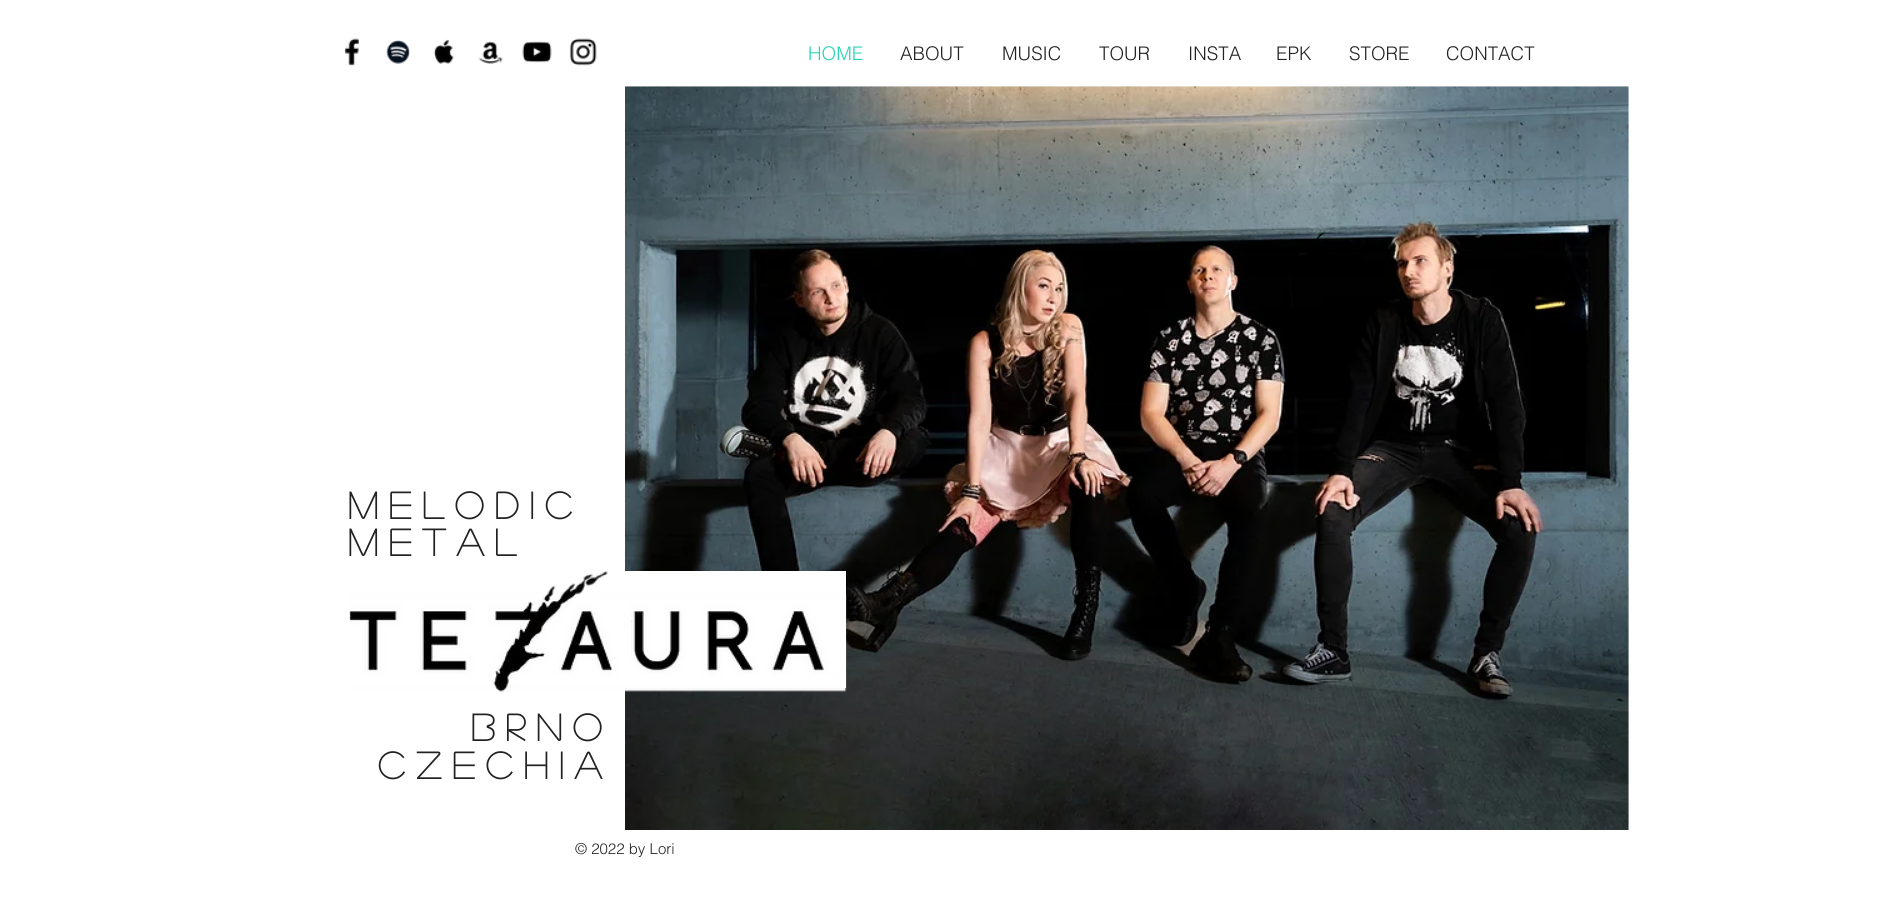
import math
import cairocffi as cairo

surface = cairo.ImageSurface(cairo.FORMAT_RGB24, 1895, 922)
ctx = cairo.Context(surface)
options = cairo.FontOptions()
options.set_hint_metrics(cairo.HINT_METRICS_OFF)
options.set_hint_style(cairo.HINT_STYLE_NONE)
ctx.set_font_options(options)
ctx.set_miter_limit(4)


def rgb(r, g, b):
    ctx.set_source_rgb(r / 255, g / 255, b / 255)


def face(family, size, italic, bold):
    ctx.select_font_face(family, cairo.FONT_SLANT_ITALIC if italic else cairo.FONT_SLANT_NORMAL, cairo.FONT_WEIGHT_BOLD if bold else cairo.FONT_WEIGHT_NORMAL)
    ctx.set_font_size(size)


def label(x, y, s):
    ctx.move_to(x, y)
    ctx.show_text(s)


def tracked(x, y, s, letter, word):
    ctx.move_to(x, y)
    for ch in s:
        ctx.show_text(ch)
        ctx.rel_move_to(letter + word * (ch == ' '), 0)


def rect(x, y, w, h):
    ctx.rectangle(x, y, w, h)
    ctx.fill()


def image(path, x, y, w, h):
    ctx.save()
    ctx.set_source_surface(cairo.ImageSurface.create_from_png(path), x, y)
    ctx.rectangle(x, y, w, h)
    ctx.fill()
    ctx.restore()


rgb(255, 255, 255)
ctx.paint()
image('image0.png', 344, 38, 15, 28)
image('image1.png', 386, 40, 24, 24)
image('image2.png', 433, 39, 21, 25)
image('image3.png', 478, 41, 25, 23)
image('image4.png', 522, 41, 30, 22)
image('image5.png', 569, 38, 28, 28)
face('helvetica Light', 18.75, 0, 0)
rgb(39, 211, 180)
label(808, 60, 'HOME')
rgb(34, 34, 34)
label(900, 60, 'ABOUT')
label(1002, 60, 'MUSIC')
label(1099, 60, 'TOUR')
label(1188, 60, 'INSTA')
label(1276, 60, 'EPK')
label(1349, 60, 'STORE')
label(1446, 60, 'CONTACT')
face('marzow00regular', 37.5, 0, 1)
tracked(348, 519, 'MELODIC', 11.25, 0)
tracked(348, 556, 'METAL', 11.25, 0)
image('image6.png', 625, 86, 1004, 744)
rgb(255, 255, 255)
rect(625, 571, 221, 117)
image('image7.png', 349, 571, 498, 121)
rgb(34, 34, 34)
tracked(471, 741, 'BRNO', 11.25, 0)
tracked(378, 779, 'CZECHIA', 11.25, 0)
face('helvetica Light', 15, 0, 0)
label(575, 854, '© 2022 by Lori')
surface.write_to_png('render.png')
